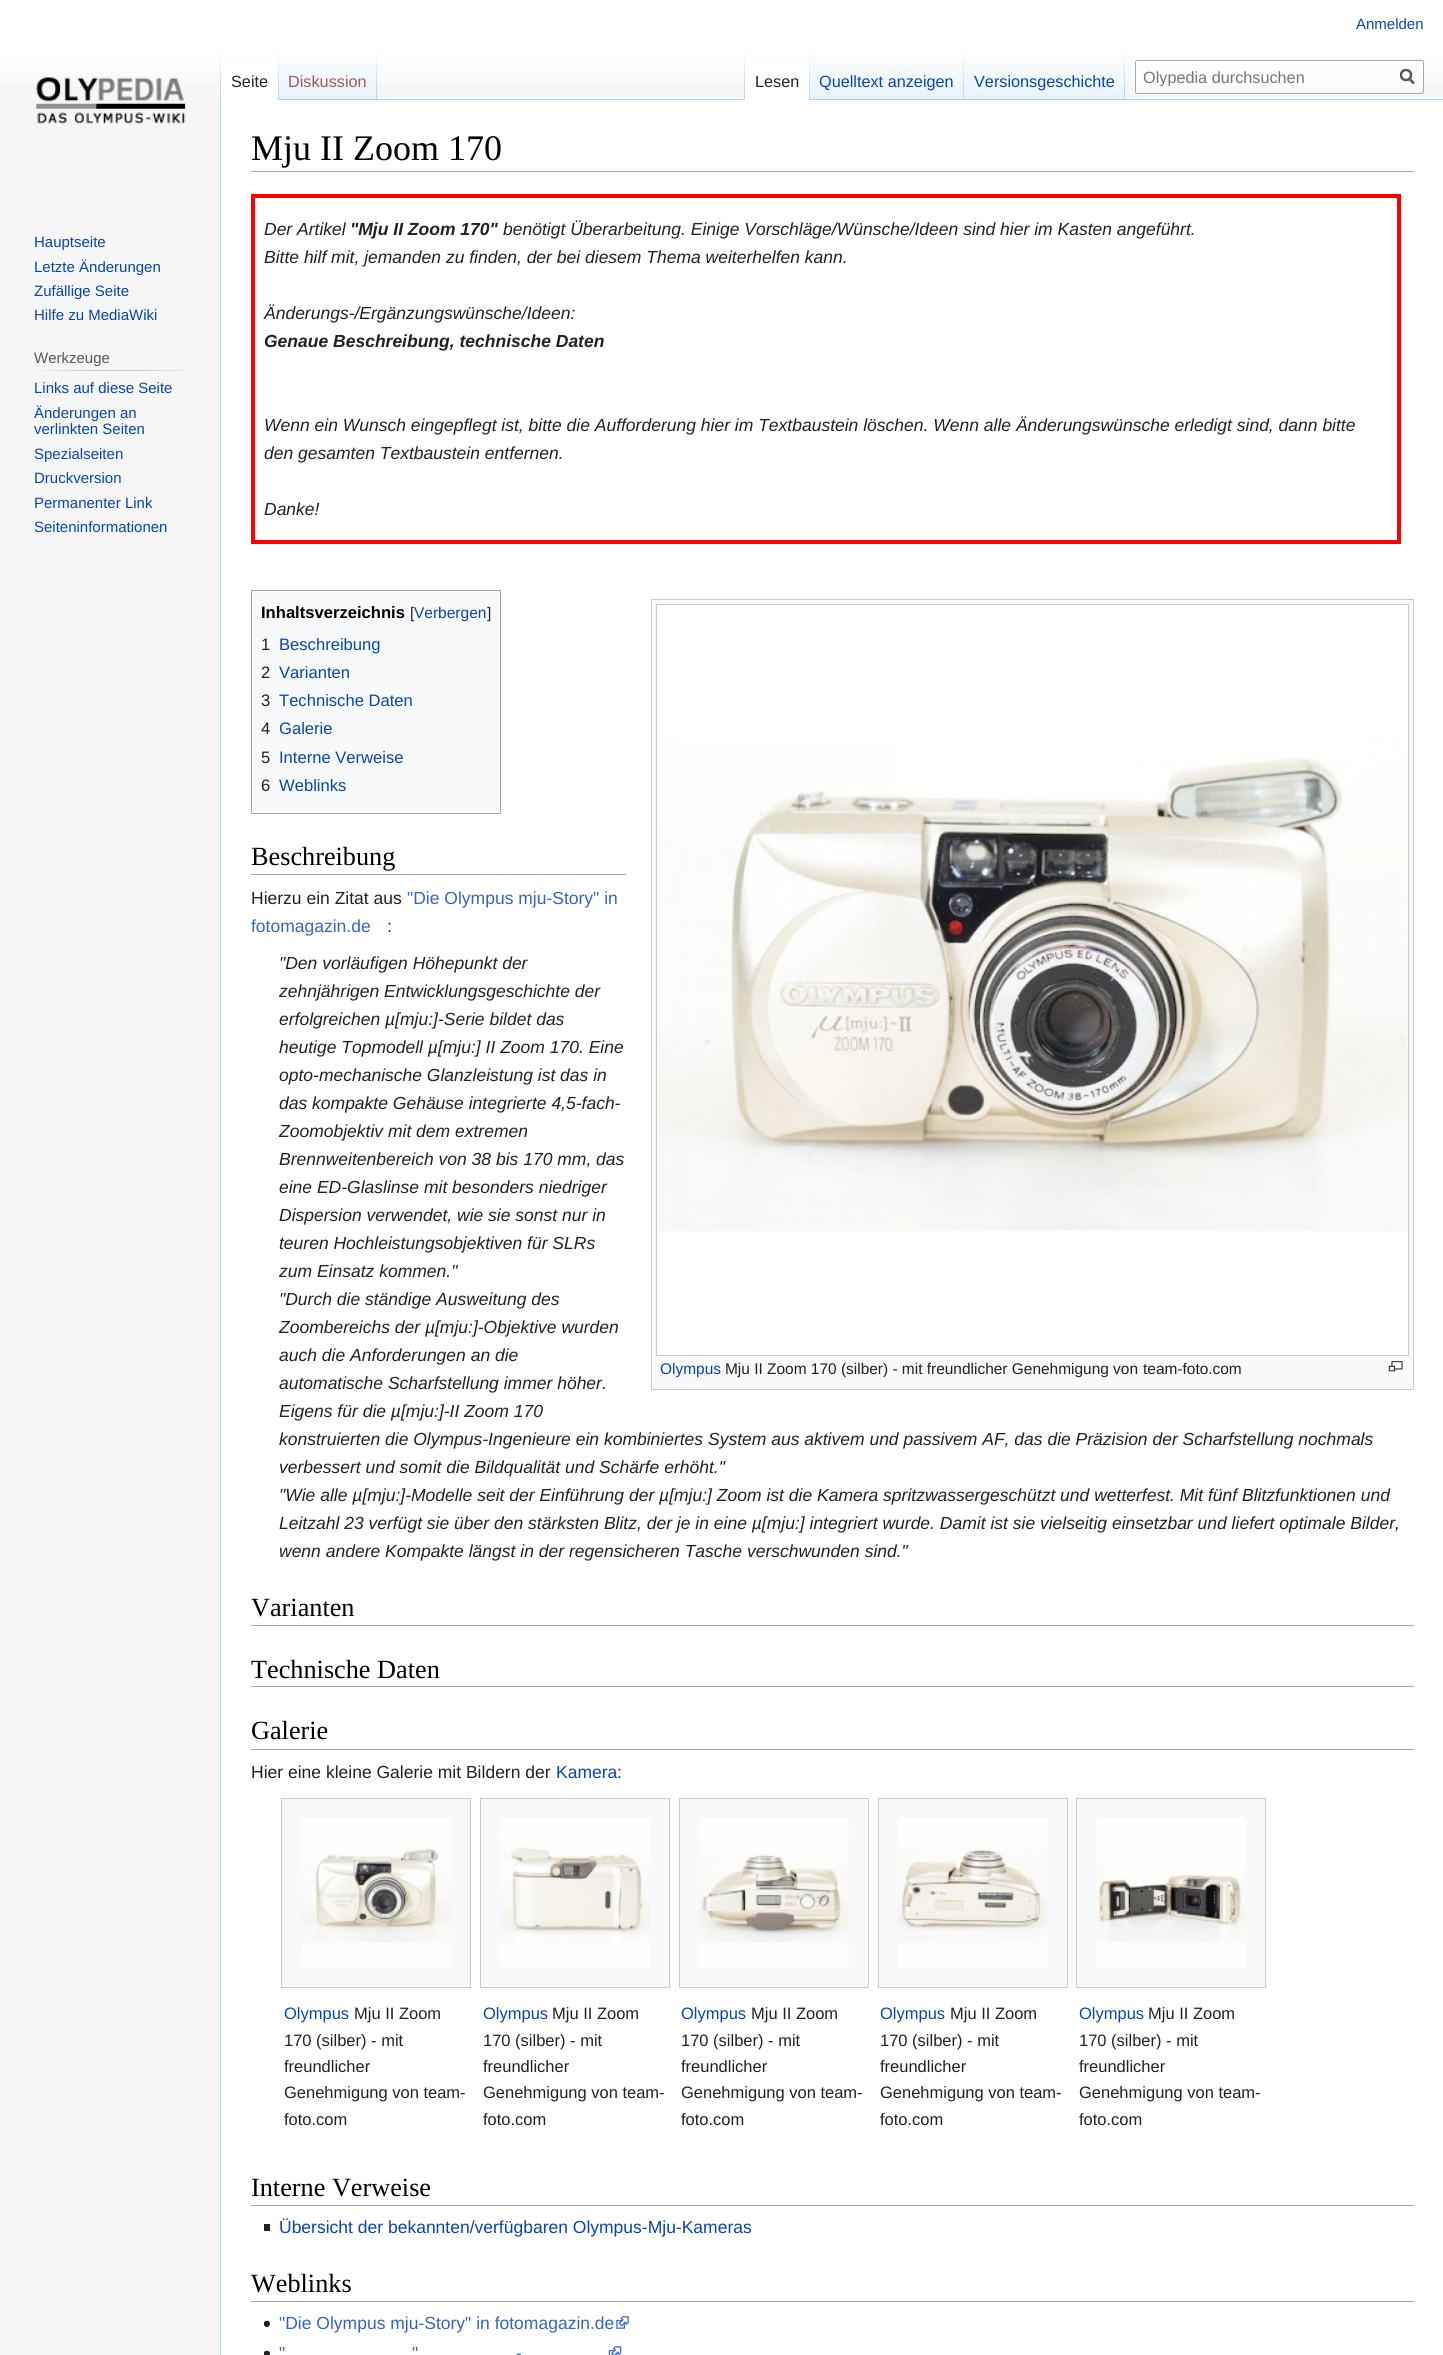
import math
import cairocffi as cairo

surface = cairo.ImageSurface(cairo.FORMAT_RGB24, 1443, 2355)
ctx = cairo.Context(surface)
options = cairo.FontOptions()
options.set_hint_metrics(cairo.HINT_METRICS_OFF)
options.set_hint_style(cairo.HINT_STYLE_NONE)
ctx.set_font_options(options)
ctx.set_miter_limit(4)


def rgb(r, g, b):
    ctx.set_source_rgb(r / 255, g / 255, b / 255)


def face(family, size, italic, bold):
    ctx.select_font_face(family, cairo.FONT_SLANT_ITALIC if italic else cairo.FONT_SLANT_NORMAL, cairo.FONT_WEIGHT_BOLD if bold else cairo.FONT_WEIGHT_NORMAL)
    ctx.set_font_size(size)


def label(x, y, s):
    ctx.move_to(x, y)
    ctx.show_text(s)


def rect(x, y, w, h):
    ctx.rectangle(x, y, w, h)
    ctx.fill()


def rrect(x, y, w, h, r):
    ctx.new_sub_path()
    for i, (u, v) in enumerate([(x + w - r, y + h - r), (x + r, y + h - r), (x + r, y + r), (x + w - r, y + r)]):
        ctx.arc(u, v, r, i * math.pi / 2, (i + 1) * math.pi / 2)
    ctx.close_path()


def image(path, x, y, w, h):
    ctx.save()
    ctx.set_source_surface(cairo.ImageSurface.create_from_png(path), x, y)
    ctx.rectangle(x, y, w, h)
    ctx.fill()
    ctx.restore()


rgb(246, 246, 246)
ctx.paint()
gradient = cairo.LinearGradient(722, 0, 722, 100)
gradient.add_color_stop_rgba(0.5, 1, 1, 1, 1)
gradient.add_color_stop_rgba(1, 0.965, 0.965, 0.965, 1)
ctx.set_source(gradient)
rect(0, 0, 1443, 86)
face('Liberation Sans', 15, 0, 0)
rgb(6, 69, 173)
label(1356, 29, 'Anmelden')
rgb(167, 215, 249)
rect(220, 99, 1, 2256)
gradient = cairo.LinearGradient(221, 50, 221, 100)
gradient.add_color_stop_rgba(0, 0.655, 0.843, 0.976, 0)
gradient.add_color_stop_rgba(1, 0.655, 0.843, 0.976, 1)
ctx.set_source(gradient)
rect(220, 50, 1, 50)
rgb(255, 255, 255)
rect(221, 64, 57, 36)
gradient = cairo.LinearGradient(278, 50, 278, 100)
gradient.add_color_stop_rgba(0, 1, 1, 1, 1)
gradient.add_color_stop_rgba(1, 0.655, 0.843, 0.976, 1)
ctx.set_source(gradient)
rect(278, 50, 1, 50)
face('Liberation Sans', 16.25, 0, 0)
rgb(32, 33, 34)
label(231, 87, 'Seite')
gradient = cairo.LinearGradient(328, 100, 328, 50)
gradient.add_color_stop_rgba(0, 0.467, 0.757, 0.965, 1)
gradient.add_color_stop_rgba(0.03, 0.91, 0.949, 0.973, 1)
gradient.add_color_stop_rgba(1, 1, 1, 1, 1)
ctx.set_source(gradient)
rect(279, 57, 99, 43)
gradient = cairo.LinearGradient(377, 50, 377, 100)
gradient.add_color_stop_rgba(0, 0.655, 0.843, 0.976, 0)
gradient.add_color_stop_rgba(1, 0.655, 0.843, 0.976, 1)
ctx.set_source(gradient)
rect(376, 50, 1, 50)
rgb(165, 88, 88)
label(288, 87, 'Diskussion')
rgb(167, 215, 249)
rect(378, 99, 1065, 1)
gradient = cairo.LinearGradient(744, 50, 744, 100)
gradient.add_color_stop_rgba(0, 0.655, 0.843, 0.976, 0)
gradient.add_color_stop_rgba(1, 0.655, 0.843, 0.976, 1)
ctx.set_source(gradient)
rect(744, 50, 1, 50)
rgb(255, 255, 255)
rect(745, 64, 64, 36)
gradient = cairo.LinearGradient(809, 50, 809, 100)
gradient.add_color_stop_rgba(0, 1, 1, 1, 1)
gradient.add_color_stop_rgba(1, 0.655, 0.843, 0.976, 1)
ctx.set_source(gradient)
rect(809, 50, 1, 50)
rgb(32, 33, 34)
label(755, 87, 'Lesen')
gradient = cairo.LinearGradient(887, 100, 887, 50)
gradient.add_color_stop_rgba(0, 0.467, 0.757, 0.965, 1)
gradient.add_color_stop_rgba(0.03, 0.91, 0.949, 0.973, 1)
gradient.add_color_stop_rgba(1, 1, 1, 1, 1)
ctx.set_source(gradient)
rect(810, 57, 154, 43)
gradient = cairo.LinearGradient(963, 50, 963, 100)
gradient.add_color_stop_rgba(0, 0.655, 0.843, 0.976, 0)
gradient.add_color_stop_rgba(1, 0.655, 0.843, 0.976, 1)
ctx.set_source(gradient)
rect(963, 50, 1, 50)
rgb(6, 69, 173)
label(819, 87, 'Quelltext anzeigen')
gradient = cairo.LinearGradient(1044, 100, 1044, 50)
gradient.add_color_stop_rgba(0, 0.467, 0.757, 0.965, 1)
gradient.add_color_stop_rgba(0.03, 0.91, 0.949, 0.973, 1)
gradient.add_color_stop_rgba(1, 1, 1, 1, 1)
ctx.set_source(gradient)
rect(964, 57, 161, 43)
gradient = cairo.LinearGradient(1124, 50, 1124, 100)
gradient.add_color_stop_rgba(0, 0.655, 0.843, 0.976, 0)
gradient.add_color_stop_rgba(1, 0.655, 0.843, 0.976, 1)
ctx.set_source(gradient)
rect(1124, 50, 1, 50)
rgb(6, 69, 173)
label(974, 87, 'Versionsgeschichte')
ctx.set_source_rgba(1, 1, 1, 0.5)
rrect(1135.5, 60.5, 288, 33, 2)
ctx.fill_preserve()
rgb(162, 169, 177)
ctx.set_line_width(1)
ctx.stroke()
ctx.save()
ctx.rectangle(1143, 68, 250, 18)
ctx.clip()
rgb(114, 119, 125)
label(1143, 83, 'Olypedia durchsuchen')
ctx.restore()
ctx.new_path()
ctx.move_to(1414, 83.5)
ctx.line_to(1409, 78.5)
rgb(84, 89, 93)
ctx.set_line_width(2.5)
ctx.stroke()
ctx.save()
ctx.rectangle(1400, 69, 15, 16)
ctx.clip()
ctx.arc(1406, 75, 5, 0, 2 * math.pi)
ctx.stroke()
ctx.restore()
image('image0.png', 36, 77, 150, 47)
face('Liberation Sans', 15, 0, 0)
rgb(6, 69, 173)
label(34, 247, 'Hauptseite')
label(34, 272, 'Letzte Änderungen')
label(34, 296, 'Zufällige Seite')
label(34, 320, 'Hilfe zu MediaWiki')
gradient = cairo.LinearGradient(34, 371, 198, 371)
gradient.add_color_stop_rgba(0, 0.965, 0.965, 0.965, 1)
gradient.add_color_stop_rgba(0.33, 0.784, 0.8, 0.82, 1)
gradient.add_color_stop_rgba(0.66, 0.784, 0.8, 0.82, 1)
gradient.add_color_stop_rgba(1, 0.965, 0.965, 0.965, 1)
ctx.set_source(gradient)
rect(34, 370, 164, 1)
rgb(84, 89, 93)
label(34, 363, 'Werkzeuge')
rgb(6, 69, 173)
label(34, 393, 'Links auf diese Seite')
label(34, 418, 'Änderungen an')
label(34, 434, 'verlinkten Seiten')
label(34, 459, 'Spezialseiten')
label(34, 483, 'Druckversion')
label(34, 508, 'Permanenter Link')
label(34, 532, 'Seiteninformationen')
rgb(255, 255, 255)
rect(221, 100, 1222, 2255)
rgb(162, 169, 177)
rect(251, 171, 1163, 1)
face('Liberation Serif', 36, 0, 0)
rgb(0, 0, 0)
label(251, 160, 'Mju II Zoom 170')
ctx.rectangle(253, 196, 1146, 346)
rgb(255, 0, 0)
ctx.set_line_width(4)
ctx.stroke()
face('Liberation Sans', 17.5, 1, 0)
rgb(32, 33, 34)
label(264, 235, 'Der Artikel')
face('Liberation Sans', 17.5, 1, 1)
label(350, 235, '"Mju II Zoom 170"')
face('Liberation Sans', 17.5, 1, 0)
label(503, 235, 'benötigt Überarbeitung. Einige Vorschläge/Wünsche/Ideen sind hier im Kasten angeführt.')
label(264, 263, 'Bitte hilf mit, jemanden zu finden, der bei diesem Thema weiterhelfen kann.')
label(264, 319, 'Änderungs-/Ergänzungswünsche/Ideen:')
face('Liberation Sans', 17.5, 1, 1)
label(264, 347, 'Genaue Beschreibung, technische Daten')
face('Liberation Sans', 17.5, 1, 0)
label(264, 431, 'Wenn ein Wunsch eingepflegt ist, bitte die Aufforderung hier im Textbaustein löschen. Wenn alle Änderungswünsche erledigt sind, dann bitte')
label(264, 459, 'den gesamten Textbaustein entfernen.')
label(264, 515, 'Danke!')
rgb(248, 249, 250)
ctx.rectangle(251.5, 590.5, 249, 223)
ctx.fill_preserve()
rgb(162, 169, 177)
ctx.set_line_width(1)
ctx.stroke()
face('Liberation Sans', 16.6, 0, 1)
rgb(0, 0, 0)
label(261, 618, 'Inhaltsverzeichnis')
face('Liberation Sans', 15.5, 0, 0)
rgb(32, 33, 34)
label(410, 618, '[')
rgb(6, 69, 173)
label(414, 618, 'Verbergen')
rgb(32, 33, 34)
label(487, 618, ']')
face('Liberation Sans', 16.6, 0, 0)
label(261, 650, '1')
rgb(6, 69, 173)
label(279, 650, 'Beschreibung')
rgb(32, 33, 34)
label(261, 678, '2')
rgb(6, 69, 173)
label(279, 678, 'Varianten')
rgb(32, 33, 34)
label(261, 706, '3')
rgb(6, 69, 173)
label(279, 706, 'Technische Daten')
rgb(32, 33, 34)
label(261, 734, '4')
rgb(6, 69, 173)
label(279, 734, 'Galerie')
rgb(32, 33, 34)
label(261, 763, '5')
rgb(6, 69, 173)
label(279, 763, 'Interne Verweise')
rgb(32, 33, 34)
label(261, 791, '6')
rgb(6, 69, 173)
label(279, 791, 'Weblinks')
rgb(162, 169, 177)
rect(251, 874, 375, 1)
face('Liberation Serif', 26.25, 0, 0)
rgb(0, 0, 0)
label(251, 865, 'Beschreibung')
face('Liberation Sans', 17.5, 0, 0)
rgb(32, 33, 34)
label(251, 904, 'Hierzu ein Zitat aus')
rgb(51, 102, 187)
label(407, 904, '"Die Olympus mju-Story" in')
label(251, 932, 'fotomagazin.de')
rgb(32, 33, 34)
label(387, 932, ':')
face('Liberation Sans', 17.5, 1, 0)
label(279, 969, '"Den vorläufigen Höhepunkt der')
label(279, 997, 'zehnjährigen Entwicklungsgeschichte der')
label(279, 1025, 'erfolgreichen µ[mju:]-Serie bildet das')
label(279, 1053, 'heutige Topmodell µ[mju:] II Zoom 170. Eine')
label(279, 1081, 'opto-mechanische Glanzleistung ist das in')
label(279, 1109, 'das kompakte Gehäuse integrierte 4,5-fach-')
label(279, 1137, 'Zoomobjektiv mit dem extremen')
label(279, 1165, 'Brennweitenbereich von 38 bis 170 mm, das')
label(279, 1193, 'eine ED-Glaslinse mit besonders niedriger')
label(279, 1221, 'Dispersion verwendet, wie sie sonst nur in')
label(279, 1249, 'teuren Hochleistungsobjektiven für SLRs')
label(279, 1277, 'zum Einsatz kommen."')
label(279, 1305, '"Durch die ständige Ausweitung des')
label(279, 1333, 'Zoombereichs der µ[mju:]-Objektive wurden')
label(279, 1361, 'auch die Anforderungen an die')
label(279, 1389, 'automatische Scharfstellung immer höher.')
label(279, 1417, 'Eigens für die µ[mju:]-II Zoom 170')
label(279, 1445, 'konstruierten die Olympus-Ingenieure ein kombiniertes System aus aktivem und passivem AF, das die Präzision der Scharfstellung nochmals')
label(279, 1473, 'verbessert und somit die Bildqualität und Schärfe erhöht."')
label(279, 1501, '"Wie alle µ[mju:]-Modelle seit der Einführung der µ[mju:] Zoom ist die Kamera spritzwassergeschützt und wetterfest. Mit fünf Blitzfunktionen und')
label(279, 1529, 'Leitzahl 23 verfügt sie über den stärksten Blitz, der je in eine µ[mju:] integriert wurde. Damit ist sie vielseitig einsetzbar und liefert optimale Bilder,')
label(279, 1557, 'wenn andere Kompakte längst in der regensicheren Tasche verschwunden sind."')
rgb(248, 249, 250)
ctx.rectangle(651.5, 599.5, 762, 790)
ctx.fill_preserve()
rgb(200, 204, 209)
ctx.stroke()
rgb(255, 255, 255)
ctx.rectangle(656.5, 604.5, 752, 751)
ctx.fill_preserve()
rgb(200, 204, 209)
ctx.stroke()
image('image1.png', 657, 740, 751, 492)
face('Liberation Sans', 15.45, 0, 0)
rgb(6, 69, 173)
label(660, 1374, 'Olympus')
rgb(32, 33, 34)
label(725, 1374, 'Mju II Zoom 170 (silber) - mit freundlicher Genehmigung von')
label(1143, 1374, 'team-foto.com')
image('image2.png', 1388, 1361, 15, 11)
rgb(162, 169, 177)
rect(251, 1625, 1163, 1)
face('Liberation Serif', 26.25, 0, 0)
rgb(0, 0, 0)
label(251, 1616, 'Varianten')
rgb(162, 169, 177)
rect(251, 1686, 1163, 1)
rgb(0, 0, 0)
label(251, 1678, 'Technische Daten')
rgb(162, 169, 177)
rect(251, 1749, 1163, 1)
rgb(0, 0, 0)
label(251, 1739, 'Galerie')
face('Liberation Sans', 17.5, 0, 0)
rgb(32, 33, 34)
label(251, 1778, 'Hier eine kleine Galerie mit Bildern der')
rgb(6, 69, 173)
label(556, 1778, 'Kamera')
rgb(32, 33, 34)
label(617, 1778, ':')
rgb(248, 249, 250)
ctx.rectangle(281.5, 1798.5, 189, 189)
ctx.fill_preserve()
rgb(200, 204, 209)
ctx.stroke()
image('image3.png', 301, 1818, 150, 149)
face('Liberation Sans', 16.5, 0, 0)
rgb(6, 69, 173)
label(284, 2019, 'Olympus')
rgb(32, 33, 34)
label(354, 2019, 'Mju II Zoom')
label(284, 2046, '170 (silber) - mit')
label(284, 2072, 'freundlicher')
label(284, 2098, 'Genehmigung von team-')
label(284, 2125, 'foto.com')
rgb(248, 249, 250)
ctx.rectangle(480.5, 1798.5, 189, 189)
ctx.fill_preserve()
rgb(200, 204, 209)
ctx.stroke()
image('image4.png', 500, 1818, 150, 149)
rgb(6, 69, 173)
label(483, 2019, 'Olympus')
rgb(32, 33, 34)
label(552, 2019, 'Mju II Zoom')
label(483, 2046, '170 (silber) - mit')
label(483, 2072, 'freundlicher')
label(483, 2098, 'Genehmigung von team-')
label(483, 2125, 'foto.com')
rgb(248, 249, 250)
ctx.rectangle(679.5, 1798.5, 189, 189)
ctx.fill_preserve()
rgb(200, 204, 209)
ctx.stroke()
image('image5.png', 699, 1818, 150, 149)
rgb(6, 69, 173)
label(681, 2019, 'Olympus')
rgb(32, 33, 34)
label(751, 2019, 'Mju II Zoom')
label(681, 2046, '170 (silber) - mit')
label(681, 2072, 'freundlicher')
label(681, 2098, 'Genehmigung von team-')
label(681, 2125, 'foto.com')
rgb(248, 249, 250)
ctx.rectangle(878.5, 1798.5, 189, 189)
ctx.fill_preserve()
rgb(200, 204, 209)
ctx.stroke()
image('image6.png', 897, 1818, 151, 149)
rgb(6, 69, 173)
label(880, 2019, 'Olympus')
rgb(32, 33, 34)
label(950, 2019, 'Mju II Zoom')
label(880, 2046, '170 (silber) - mit')
label(880, 2072, 'freundlicher')
label(880, 2098, 'Genehmigung von team-')
label(880, 2125, 'foto.com')
rgb(248, 249, 250)
ctx.rectangle(1076.5, 1798.5, 189, 189)
ctx.fill_preserve()
rgb(200, 204, 209)
ctx.stroke()
image('image7.png', 1096, 1818, 150, 149)
rgb(6, 69, 173)
label(1079, 2019, 'Olympus')
rgb(32, 33, 34)
label(1148, 2019, 'Mju II Zoom')
label(1079, 2046, '170 (silber) - mit')
label(1079, 2072, 'freundlicher')
label(1079, 2098, 'Genehmigung von team-')
label(1079, 2125, 'foto.com')
rgb(162, 169, 177)
rect(251, 2205, 1163, 1)
face('Liberation Serif', 26.25, 0, 0)
rgb(0, 0, 0)
label(251, 2196, 'Interne Verweise')
rgb(32, 33, 34)
rect(264, 2224, 6, 7)
face('Liberation Sans', 17.5, 0, 0)
rgb(6, 69, 173)
label(279, 2233, 'Übersicht der bekannten/verfügbaren Olympus-Mju-Kameras')
rgb(162, 169, 177)
rect(251, 2301, 1163, 1)
face('Liberation Serif', 26.25, 0, 0)
rgb(0, 0, 0)
label(251, 2292, 'Weblinks')
image('image8.png', 264, 2320, 6, 7)
face('Liberation Sans', 17.5, 0, 0)
rgb(51, 102, 187)
label(279, 2329, '"Die Olympus mju-Story" in fotomagazin.de')
image('image9.png', 616, 2316, 13, 13)
image('image10.png', 264, 2350, 6, 5)
label(279, 2359, '"')
label(412, 2359, '"')
label(516, 2359, '-')
image('image11.png', 608, 2346, 14, 9)
surface.write_to_png('render.png')
